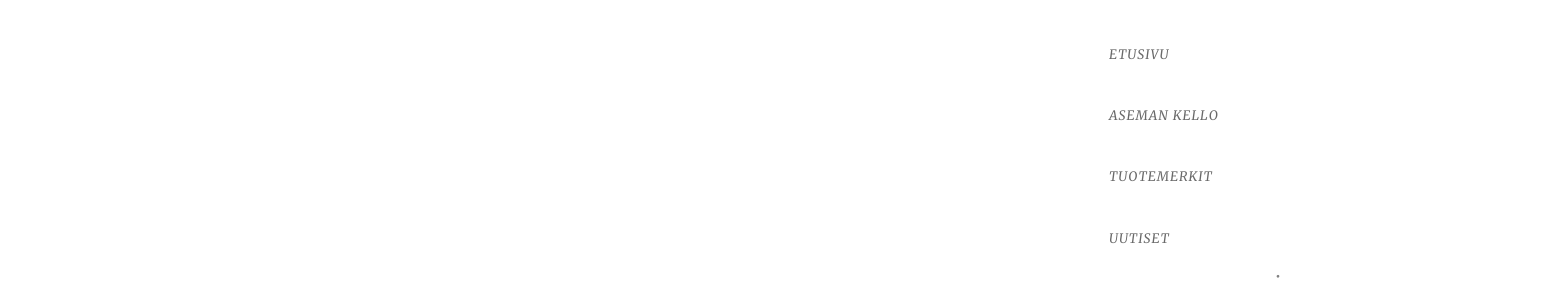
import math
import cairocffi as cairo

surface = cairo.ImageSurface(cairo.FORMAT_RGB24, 1547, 301)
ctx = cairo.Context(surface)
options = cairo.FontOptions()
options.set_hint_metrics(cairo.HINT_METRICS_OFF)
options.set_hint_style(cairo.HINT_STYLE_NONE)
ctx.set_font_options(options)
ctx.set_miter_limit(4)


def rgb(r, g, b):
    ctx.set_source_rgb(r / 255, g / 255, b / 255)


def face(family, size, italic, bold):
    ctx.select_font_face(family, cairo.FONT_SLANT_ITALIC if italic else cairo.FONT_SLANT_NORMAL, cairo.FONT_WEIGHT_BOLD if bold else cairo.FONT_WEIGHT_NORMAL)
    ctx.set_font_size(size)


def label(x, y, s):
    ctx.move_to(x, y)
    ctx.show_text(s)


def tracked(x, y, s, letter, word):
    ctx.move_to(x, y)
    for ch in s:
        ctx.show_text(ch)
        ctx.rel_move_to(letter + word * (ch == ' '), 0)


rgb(255, 255, 255)
ctx.paint()
face('Merriweather', 13, 1, 0)
rgb(105, 105, 105)
tracked(1109, 59, 'ETUSIVU', 1, 0)
tracked(1109, 120, 'ASEMAN KELLO', 1, 0)
tracked(1109, 181, 'TUOTEMERKIT', 1, 0)
tracked(1109, 243, 'UUTISET', 1, 0)
face('Merriweather', 14, 0, 0)
rgb(128, 128, 128)
label(1275, 281, '•')
surface.write_to_png('render.png')
